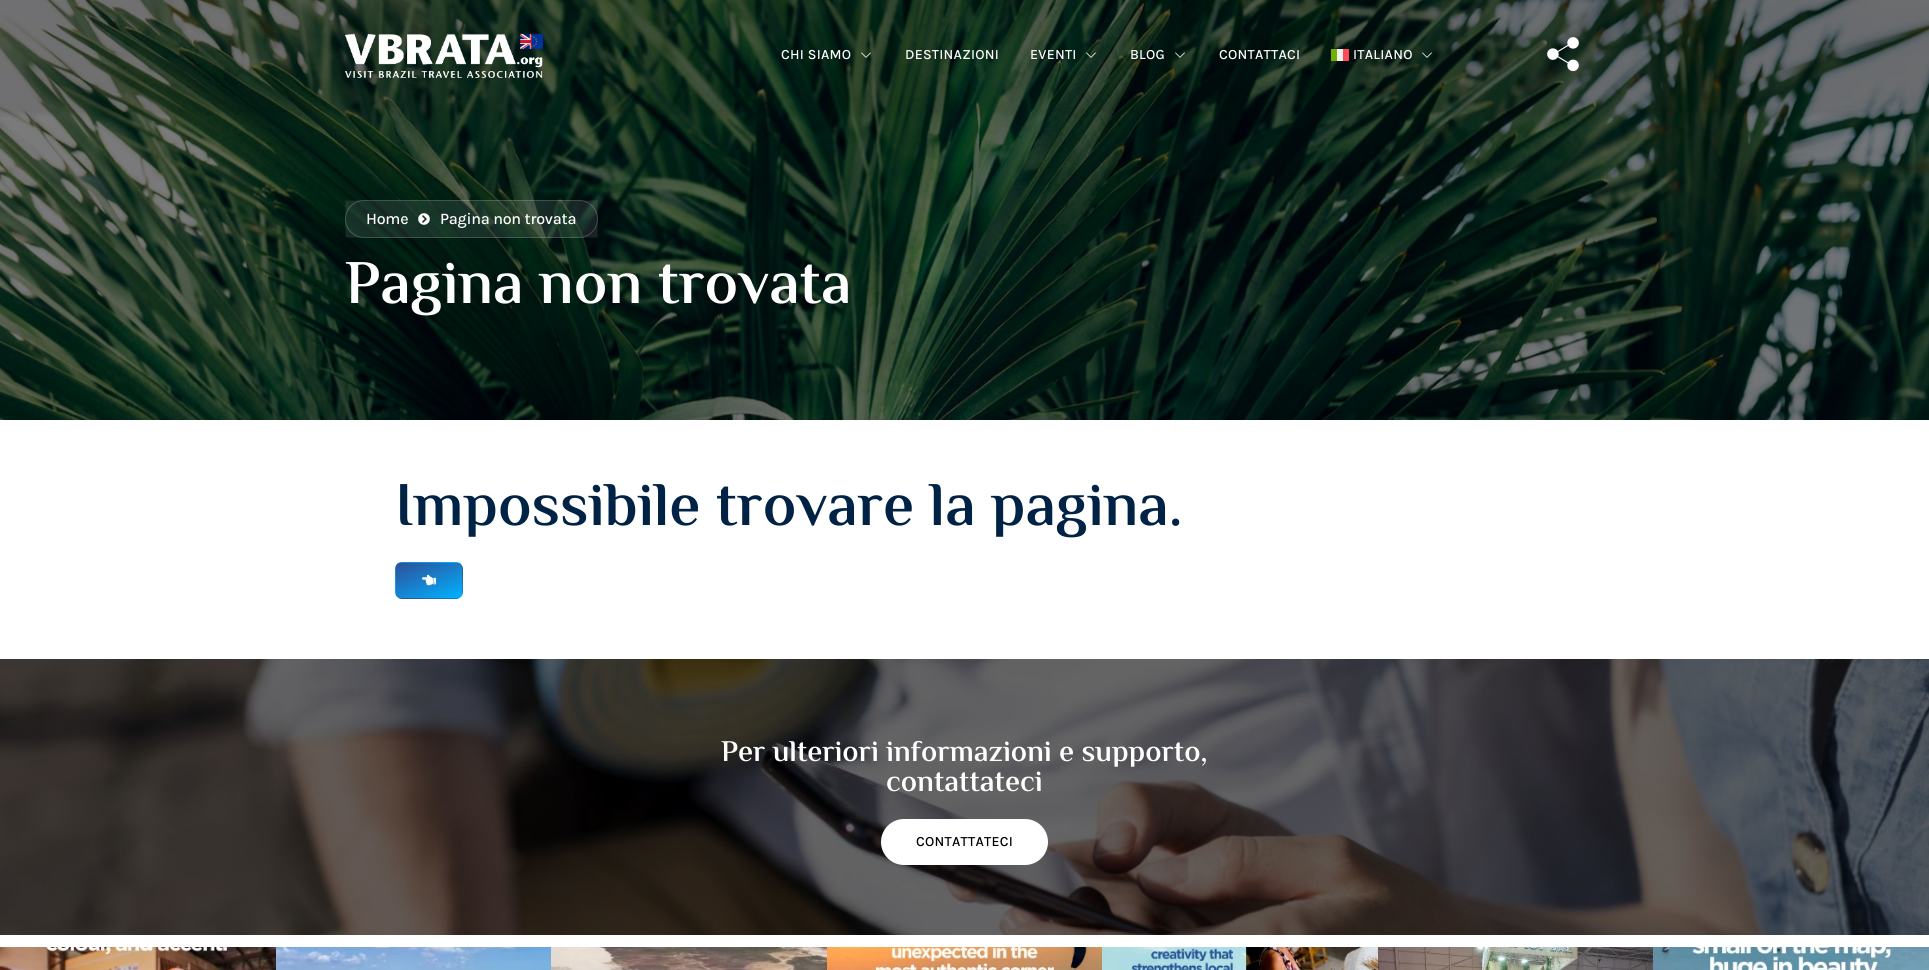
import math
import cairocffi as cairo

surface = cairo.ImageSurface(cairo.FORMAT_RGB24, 1929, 970)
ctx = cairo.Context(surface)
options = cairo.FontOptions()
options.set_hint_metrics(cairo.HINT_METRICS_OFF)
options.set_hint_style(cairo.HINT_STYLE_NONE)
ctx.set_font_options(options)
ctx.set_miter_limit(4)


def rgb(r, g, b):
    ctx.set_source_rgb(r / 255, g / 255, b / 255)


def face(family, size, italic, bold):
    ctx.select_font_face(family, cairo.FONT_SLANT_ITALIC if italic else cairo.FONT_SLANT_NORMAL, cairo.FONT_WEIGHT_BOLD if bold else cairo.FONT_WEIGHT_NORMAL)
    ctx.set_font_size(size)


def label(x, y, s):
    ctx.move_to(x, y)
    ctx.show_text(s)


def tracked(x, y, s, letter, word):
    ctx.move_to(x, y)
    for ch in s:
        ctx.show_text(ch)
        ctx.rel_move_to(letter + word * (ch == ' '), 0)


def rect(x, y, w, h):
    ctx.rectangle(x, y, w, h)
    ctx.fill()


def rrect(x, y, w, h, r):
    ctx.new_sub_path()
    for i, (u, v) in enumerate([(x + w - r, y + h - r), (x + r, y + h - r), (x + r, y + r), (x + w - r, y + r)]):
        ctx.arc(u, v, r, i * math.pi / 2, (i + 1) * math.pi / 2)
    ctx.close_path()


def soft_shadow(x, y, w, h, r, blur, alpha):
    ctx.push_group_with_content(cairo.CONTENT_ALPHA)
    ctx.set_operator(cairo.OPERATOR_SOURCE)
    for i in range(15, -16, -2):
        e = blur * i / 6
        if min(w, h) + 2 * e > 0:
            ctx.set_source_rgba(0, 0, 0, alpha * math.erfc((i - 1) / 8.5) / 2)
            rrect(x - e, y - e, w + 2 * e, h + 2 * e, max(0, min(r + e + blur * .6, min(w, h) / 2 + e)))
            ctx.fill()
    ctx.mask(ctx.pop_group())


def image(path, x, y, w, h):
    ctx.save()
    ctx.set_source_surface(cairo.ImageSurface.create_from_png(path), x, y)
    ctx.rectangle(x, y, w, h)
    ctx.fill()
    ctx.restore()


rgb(255, 255, 255)
ctx.paint()
image('image6.png', 0, 0, 1929, 420)
ctx.save()
ctx.rectangle(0, 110, 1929, 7)
ctx.clip()
rgb(0, 0, 0)
soft_shadow(0, 1, 1929, 110, 0, 5, 0.17)
ctx.restore()
ctx.set_source_rgba(0, 0, 0, 0.04)
rect(0, 0, 1929, 110)
rect(0, 0, 1929, 110)
image('image0.png', 344, 33, 199, 45)
face('Karla Medium', 14, 0, 0)
rgb(255, 255, 255)
tracked(781, 59, 'CHI SIAMO', 0.25, 0)
image('image1.png', 861, 52, 10, 6)
tracked(905, 59, 'DESTINAZIONI', 0.25, 0)
tracked(1030, 59, 'EVENTI', 0.25, 0)
image('image2.png', 1086, 52, 10, 6)
tracked(1130, 59, 'BLOG', 0.25, 0)
image('image3.png', 1175, 52, 10, 6)
tracked(1219, 59, 'CONTATTACI', 0.25, 0)
rgb(240, 240, 240)
rect(1337, 49, 6, 12)
rgb(255, 75, 85)
rect(1343, 49, 6, 12)
rgb(115, 175, 0)
rect(1331, 49, 6, 12)
rgb(255, 255, 255)
tracked(1353, 59, 'ITALIANO', 0.25, 0)
image('image4.png', 1422, 52, 10, 6)
image('image5.png', 1547, 37, 32, 35)
ctx.set_source_rgba(1, 1, 1, 0.05)
rect(345, 200, 253, 38)
rrect(345.5, 200.5, 252, 37, 18.5)
ctx.set_source_rgba(1, 1, 1, 0.21)
ctx.set_line_width(1)
ctx.stroke()
ctx.set_source_rgba(1, 1, 1, 0.05)
rect(346, 201, 251, 36)
face('Karla Medium', 16, 0, 0)
rgb(255, 255, 255)
tracked(366, 224, 'Home', -0.25, 0)
image('image7.png', 418, 213, 12, 12)
tracked(440, 224, 'Pagina non trovata', -0.25, 0)
face('El Messiri SemiBold', 62, 0, 0)
label(345, 303, 'Pagina non trovata')
rgb(0, 34, 68)
label(395, 525, 'Impossibile trovare la pagina.')
ctx.save()
rrect(395, 562, 68, 37, 7)
ctx.clip()
gradient = cairo.LinearGradient(440, 572, 418, 519)
gradient.add_color_stop_rgba(0, 0, 0.698, 1, 1)
gradient.add_color_stop_rgba(1, 0.18, 0.31, 0.604, 1)
ctx.set_source(gradient)
rect(396, 562, 66, 1)
gradient = cairo.LinearGradient(374, 607, 352, 554)
gradient.add_color_stop_rgba(0, 0, 0.698, 1, 1)
gradient.add_color_stop_rgba(1, 0.18, 0.31, 0.604, 1)
ctx.set_source(gradient)
rect(395, 563, 1, 35)
gradient = cairo.LinearGradient(440, 607, 418, 554)
gradient.add_color_stop_rgba(0, 0, 0.698, 1, 1)
gradient.add_color_stop_rgba(1, 0.18, 0.31, 0.604, 1)
ctx.set_source(gradient)
rect(396, 563, 66, 35)
gradient = cairo.LinearGradient(506, 607, 484, 554)
gradient.add_color_stop_rgba(0, 0, 0.698, 1, 1)
gradient.add_color_stop_rgba(1, 0.18, 0.31, 0.604, 1)
ctx.set_source(gradient)
rect(462, 563, 1, 35)
gradient = cairo.LinearGradient(440, 642, 418, 589)
gradient.add_color_stop_rgba(0, 0, 0.698, 1, 1)
gradient.add_color_stop_rgba(1, 0.18, 0.31, 0.604, 1)
ctx.set_source(gradient)
rect(396, 598, 66, 1)
ctx.restore()
image('image8.png', 422, 574, 14, 12)
image('image9.png', 0, 659, 1929, 276)
face('El Messiri SemiBold', 30, 0, 0)
rgb(255, 255, 255)
label(721, 761, 'Per ulteriori informazioni e supporto,')
label(886, 791, 'contattateci')
rrect(881, 819, 167, 46, 23)
ctx.fill()
face('Karla Medium', 14, 0, 0)
rgb(0, 0, 0)
tracked(916, 846, 'CONTATTATECI', 0.25, 0)
image('image10.png', 0, 947, 276, 23)
image('image11.png', 276, 947, 275, 23)
image('image12.png', 551, 947, 276, 23)
image('image13.png', 827, 947, 275, 23)
image('image14.png', 1102, 947, 276, 23)
image('image15.png', 1378, 947, 275, 23)
image('image16.png', 1653, 947, 276, 23)
surface.write_to_png('render.png')
